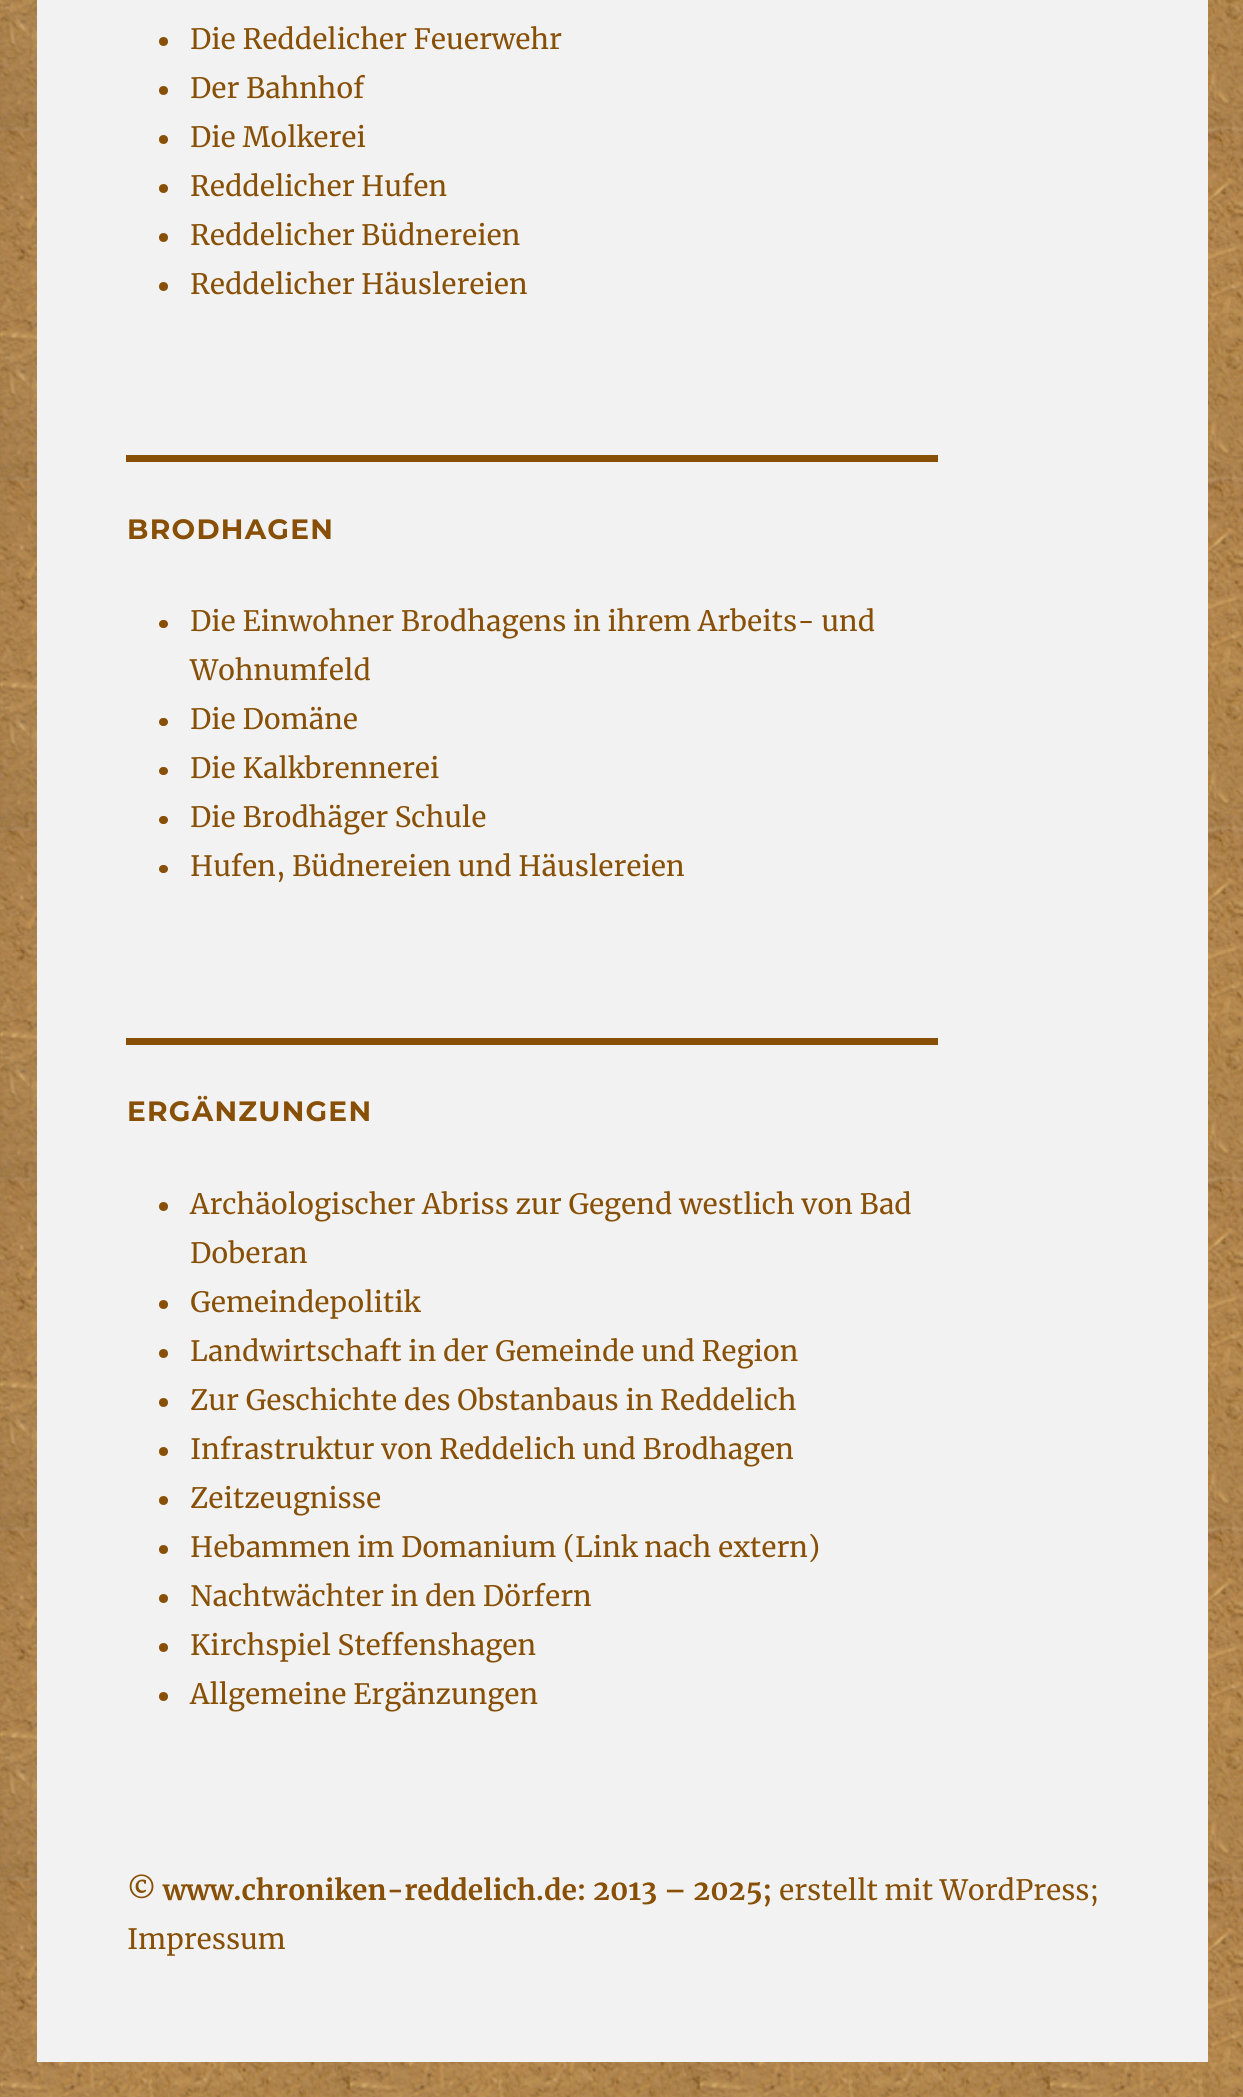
import math
import cairocffi as cairo

surface = cairo.ImageSurface(cairo.FORMAT_RGB24, 1243, 2097)
ctx = cairo.Context(surface)
options = cairo.FontOptions()
options.set_hint_metrics(cairo.HINT_METRICS_OFF)
options.set_hint_style(cairo.HINT_STYLE_NONE)
ctx.set_font_options(options)
ctx.set_miter_limit(4)


def rgb(r, g, b):
    ctx.set_source_rgb(r / 255, g / 255, b / 255)


def face(family, size, italic, bold):
    ctx.select_font_face(family, cairo.FONT_SLANT_ITALIC if italic else cairo.FONT_SLANT_NORMAL, cairo.FONT_WEIGHT_BOLD if bold else cairo.FONT_WEIGHT_NORMAL)
    ctx.set_font_size(size)


def label(x, y, s):
    ctx.move_to(x, y)
    ctx.show_text(s)


def tracked(x, y, s, letter, word):
    ctx.move_to(x, y)
    for ch in s:
        ctx.show_text(ch)
        ctx.rel_move_to(letter + word * (ch == ' '), 0)


def rect(x, y, w, h):
    ctx.rectangle(x, y, w, h)
    ctx.fill()


def rrect(x, y, w, h, r):
    ctx.new_sub_path()
    for i, (u, v) in enumerate([(x + w - r, y + h - r), (x + r, y + h - r), (x + r, y + r), (x + w - r, y + r)]):
        ctx.arc(u, v, r, i * math.pi / 2, (i + 1) * math.pi / 2)
    ctx.close_path()


def image(path, x, y, w, h):
    ctx.save()
    ctx.set_source_surface(cairo.ImageSurface.create_from_png(path), x, y)
    ctx.rectangle(x, y, w, h)
    ctx.fill()
    ctx.restore()


rgb(255, 255, 255)
ctx.paint()
image('image0.png', 0, 0, 1243, 2097)
rgb(242, 242, 242)
rect(37, 0, 1171, 2062)
rgb(136, 80, 6)
ctx.arc(163.5, 41.5, 4.5, 0, 2 * math.pi)
ctx.fill()
face('Merriweather', 28, 0, 0)
label(190, 49, 'Die Reddelicher Feuerwehr')
ctx.new_path()
ctx.arc(163.5, 90.5, 4.5, 0, 2 * math.pi)
ctx.fill()
label(190, 98, 'Der Bahnhof')
ctx.new_path()
ctx.arc(163.5, 139.5, 4.5, 0, 2 * math.pi)
ctx.fill()
label(190, 147, 'Die Molkerei')
ctx.new_path()
ctx.arc(163.5, 188.5, 4.5, 0, 2 * math.pi)
ctx.fill()
label(190, 196, 'Reddelicher Hufen')
ctx.new_path()
ctx.arc(163.5, 237.5, 4.5, 0, 2 * math.pi)
ctx.fill()
label(190, 245, 'Reddelicher Büdnereien')
ctx.new_path()
ctx.arc(163.5, 286.5, 4.5, 0, 2 * math.pi)
ctx.fill()
label(190, 294, 'Reddelicher Häuslereien')
rect(126, 455, 812, 7)
face('Montserrat Thin', 28, 0, 0)
tracked(127, 539, 'BRODHAGEN', 1.25, 0)
rrect(159, 620, 9, 8, 4)
ctx.fill()
face('Merriweather', 28, 0, 0)
label(190, 631, 'Die Einwohner Brodhagens in ihrem Arbeits- und')
label(190, 680, 'Wohnumfeld')
rrect(159, 718, 9, 8, 4)
ctx.fill()
label(190, 729, 'Die Domäne')
rrect(159, 767, 9, 8, 4)
ctx.fill()
label(190, 778, 'Die Kalkbrennerei')
rrect(159, 816, 9, 8, 4)
ctx.fill()
label(190, 827, 'Die Brodhäger Schule')
rrect(159, 865, 9, 8, 4)
ctx.fill()
label(190, 876, 'Hufen, Büdnereien und Häuslereien')
rect(126, 1038, 812, 7)
face('Montserrat Thin', 28, 0, 0)
tracked(127, 1121, 'ERGÄNZUNGEN', 1.25, 0)
ctx.new_path()
ctx.arc(163.5, 1206.5, 4.5, 0, 2 * math.pi)
ctx.fill()
face('Merriweather', 28, 0, 0)
label(190, 1214, 'Archäologischer Abriss zur Gegend westlich von Bad')
label(190, 1263, 'Doberan')
ctx.new_path()
ctx.arc(163.5, 1304.5, 4.5, 0, 2 * math.pi)
ctx.fill()
label(190, 1312, 'Gemeindepolitik')
ctx.new_path()
ctx.arc(163.5, 1353.5, 4.5, 0, 2 * math.pi)
ctx.fill()
label(190, 1361, 'Landwirtschaft in der Gemeinde und Region')
ctx.new_path()
ctx.arc(163.5, 1402.5, 4.5, 0, 2 * math.pi)
ctx.fill()
label(190, 1410, 'Zur Geschichte des Obstanbaus in Reddelich')
ctx.new_path()
ctx.arc(163.5, 1451.5, 4.5, 0, 2 * math.pi)
ctx.fill()
label(190, 1459, 'Infrastruktur von Reddelich und Brodhagen')
ctx.new_path()
ctx.arc(163.5, 1500.5, 4.5, 0, 2 * math.pi)
ctx.fill()
label(190, 1508, 'Zeitzeugnisse')
ctx.new_path()
ctx.arc(163.5, 1549.5, 4.5, 0, 2 * math.pi)
ctx.fill()
label(190, 1557, 'Hebammen im Domanium (Link nach extern)')
ctx.new_path()
ctx.arc(163.5, 1598.5, 4.5, 0, 2 * math.pi)
ctx.fill()
label(190, 1606, 'Nachtwächter in den Dörfern')
ctx.new_path()
ctx.arc(163.5, 1647.5, 4.5, 0, 2 * math.pi)
ctx.fill()
label(190, 1655, 'Kirchspiel Steffenshagen')
ctx.new_path()
ctx.arc(163.5, 1696.5, 4.5, 0, 2 * math.pi)
ctx.fill()
label(190, 1704, 'Allgemeine Ergänzungen')
face('Merriweather', 28, 0, 1)
label(127, 1900, '© www.chroniken-reddelich.de: 2013 – 2025;')
face('Merriweather', 28, 0, 0)
label(779, 1900, 'erstellt mit WordPress;')
label(127, 1949, 'Impressum')
surface.write_to_png('render.png')
